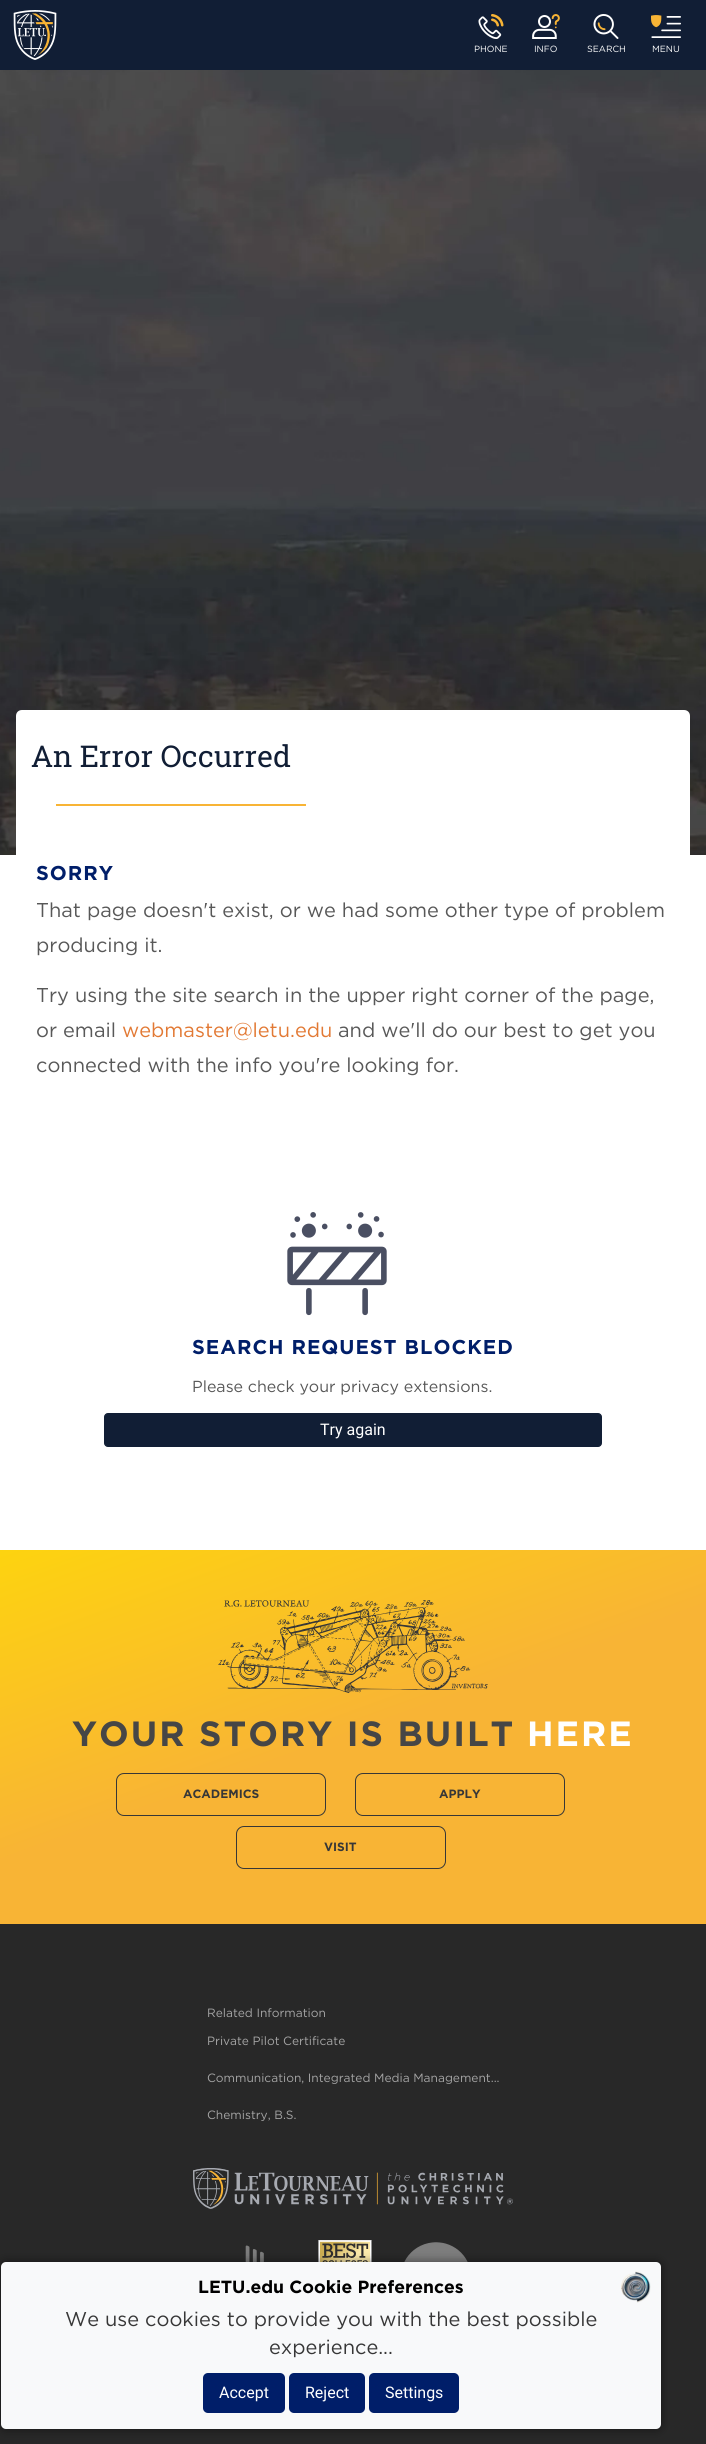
import math
import cairocffi as cairo

surface = cairo.ImageSurface(cairo.FORMAT_RGB24, 706, 2444)
ctx = cairo.Context(surface)
options = cairo.FontOptions()
options.set_hint_metrics(cairo.HINT_METRICS_OFF)
options.set_hint_style(cairo.HINT_STYLE_NONE)
ctx.set_font_options(options)
ctx.set_miter_limit(4)


def rgb(r, g, b):
    ctx.set_source_rgb(r / 255, g / 255, b / 255)


def face(family, size, italic, bold):
    ctx.select_font_face(family, cairo.FONT_SLANT_ITALIC if italic else cairo.FONT_SLANT_NORMAL, cairo.FONT_WEIGHT_BOLD if bold else cairo.FONT_WEIGHT_NORMAL)
    ctx.set_font_size(size)


def label(x, y, s):
    ctx.move_to(x, y)
    ctx.show_text(s)


def tracked(x, y, s, letter, word):
    ctx.move_to(x, y)
    for ch in s:
        ctx.show_text(ch)
        ctx.rel_move_to(letter + word * (ch == ' '), 0)


def rect(x, y, w, h):
    ctx.rectangle(x, y, w, h)
    ctx.fill()


def rrect(x, y, w, h, r):
    ctx.new_sub_path()
    for i, (u, v) in enumerate([(x + w - r, y + h - r), (x + r, y + h - r), (x + r, y + r), (x + w - r, y + r)]):
        ctx.arc(u, v, r, i * math.pi / 2, (i + 1) * math.pi / 2)
    ctx.close_path()


def soft_shadow(x, y, w, h, r, blur, alpha):
    ctx.push_group_with_content(cairo.CONTENT_ALPHA)
    ctx.set_operator(cairo.OPERATOR_SOURCE)
    for i in range(15, -16, -2):
        e = blur * i / 6
        if min(w, h) + 2 * e > 0:
            ctx.set_source_rgba(0, 0, 0, alpha * math.erfc((i - 1) / 8.5) / 2)
            rrect(x - e, y - e, w + 2 * e, h + 2 * e, max(0, min(r + e + blur * .6, min(w, h) / 2 + e)))
            ctx.fill()
    ctx.mask(ctx.pop_group())


def image(path, x, y, w, h):
    ctx.save()
    ctx.set_source_surface(cairo.ImageSurface.create_from_png(path), x, y)
    ctx.rectangle(x, y, w, h)
    ctx.fill()
    ctx.restore()


rgb(40, 40, 40)
ctx.paint()
image('image0.png', 0, 70, 706, 785)
rgb(17, 30, 53)
rect(0, 0, 706, 70)
image('image1.png', 13, 10, 44, 50)
image('image2.png', 478, 14, 26, 25)
face('Gotham', 9, 0, 0)
rgb(255, 255, 255)
label(474, 52, 'PHONE')
image('image3.png', 532, 14, 28, 25)
label(534, 52, 'INFO')
image('image4.png', 593, 14, 26, 25)
label(587, 52, 'SEARCH')
image('image5.png', 651, 15, 30, 23)
label(652, 52, 'MENU')
rect(0, 855, 706, 695)
ctx.new_path()
ctx.move_to(22, 710)
ctx.line_to(684, 710)
ctx.curve_to(687.5, 710, 690, 712.5, 690, 716)
ctx.line_to(690, 1545)
ctx.line_to(16, 1545)
ctx.line_to(16, 716)
ctx.curve_to(16, 712.5, 18.5, 710, 22, 710)
ctx.close_path()
ctx.fill()
face('Roboto Slab', 30, 0, 0)
rgb(17, 30, 53)
label(31, 767, 'An Error Occurred')
rgb(248, 180, 53)
rect(56, 804, 250, 2)
face('Gotham', 20, 0, 1)
rgb(0, 30, 105)
tracked(36, 880, 'SORRY', 1, 0)
face('Gotham', 20, 0, 0)
rgb(88, 88, 88)
label(36, 917, 'That page doesn\'t exist, or we had some other type of problem')
label(36, 952, 'producing it.')
label(36, 1002, 'Try using the site search in the upper right corner of the page,')
label(36, 1037, 'or email')
rgb(226, 121, 52)
label(122, 1037, 'webmaster@letu.edu')
rgb(88, 88, 88)
label(338, 1037, 'and we\'ll do our best to get you')
label(36, 1072, 'connected with the info you\'re looking for.')
image('image6.png', 287, 1212, 100, 104)
face('Gotham', 20, 0, 1)
rgb(0, 30, 105)
tracked(192, 1354, 'SEARCH REQUEST BLOCKED', 1, 0)
face('Gotham', 16, 0, 0)
rgb(88, 88, 88)
label(192, 1392, 'Please check your privacy extensions.')
rgb(17, 30, 53)
rrect(104.5, 1413.5, 497, 33, 3.5)
ctx.fill_preserve()
ctx.set_line_width(1)
ctx.stroke()
face('Roboto', 16, 0, 0)
rgb(255, 255, 255)
label(320, 1435, 'Try again')
gradient = cairo.LinearGradient(211, 1347, 454, 2016)
gradient.add_color_stop_rgba(0, 1, 0.878, 0, 1)
gradient.add_color_stop_rgba(0.58, 0.973, 0.706, 0.208, 1)
ctx.set_source(gradient)
rect(0, 1550, 706, 374)
image('image7.png', 218, 1600, 270, 93)
face('Gotham', 35, 0, 1)
rgb(70, 70, 70)
tracked(72, 1746, 'YOUR STORY IS BUILT', 2, 0)
rgb(255, 255, 255)
tracked(527, 1746, 'HERE', 2, 0)
rrect(116.5, 1773.5, 209, 42, 7.5)
rgb(55, 55, 55)
ctx.stroke()
face('Gotham', 12, 0, 1)
label(183, 1798, 'ACADEMICS')
rrect(355.5, 1773.5, 209, 42, 7.5)
ctx.stroke()
label(439, 1798, 'APPLY')
rrect(236.5, 1826.5, 209, 42, 7.5)
ctx.stroke()
label(324, 1851, 'VISIT')
face('Gotham', 12, 0, 0)
rgb(165, 165, 165)
label(207, 2017, 'Related Information')
label(207, 2045, 'Private Pilot Certificate')
label(207, 2082, 'Communication, Integrated Media Management...')
label(207, 2119, 'Chemistry, B.S.')
image('image8.png', 193, 2168, 320, 41)
image('image9.png', 245, 2245, 19, 17)
image('image10.png', 318, 2240, 54, 22)
image('image11.png', 404, 2242, 64, 20)
rgb(0, 0, 0)
soft_shadow(1, 2262, 660, 167, 5, 5, 0.5)
rgb(248, 249, 250)
rrect(1, 2262, 660, 167, 5)
ctx.fill()
face('Gotham', 17.6, 0, 1)
rgb(0, 0, 0)
label(198, 2293, 'LETU.edu Cookie Preferences')
image('image12.png', 621, 2271, 30, 32)
face('Gotham', 20, 0, 0)
rgb(55, 55, 55)
label(65, 2326, 'We use cookies to provide you with the best possible')
label(269, 2354, 'experience...')
rgb(0, 30, 105)
rrect(203, 2373, 82, 40, 5)
ctx.fill()
face('Roboto', 16, 0, 0)
rgb(255, 255, 255)
label(219, 2398, 'Accept')
rgb(0, 30, 105)
rrect(289, 2373, 76, 40, 5)
ctx.fill()
rgb(255, 255, 255)
label(305, 2398, 'Reject')
rgb(0, 30, 105)
rrect(369, 2373, 90, 40, 5)
ctx.fill()
rgb(255, 255, 255)
label(385, 2398, 'Settings')
surface.write_to_png('render.png')
